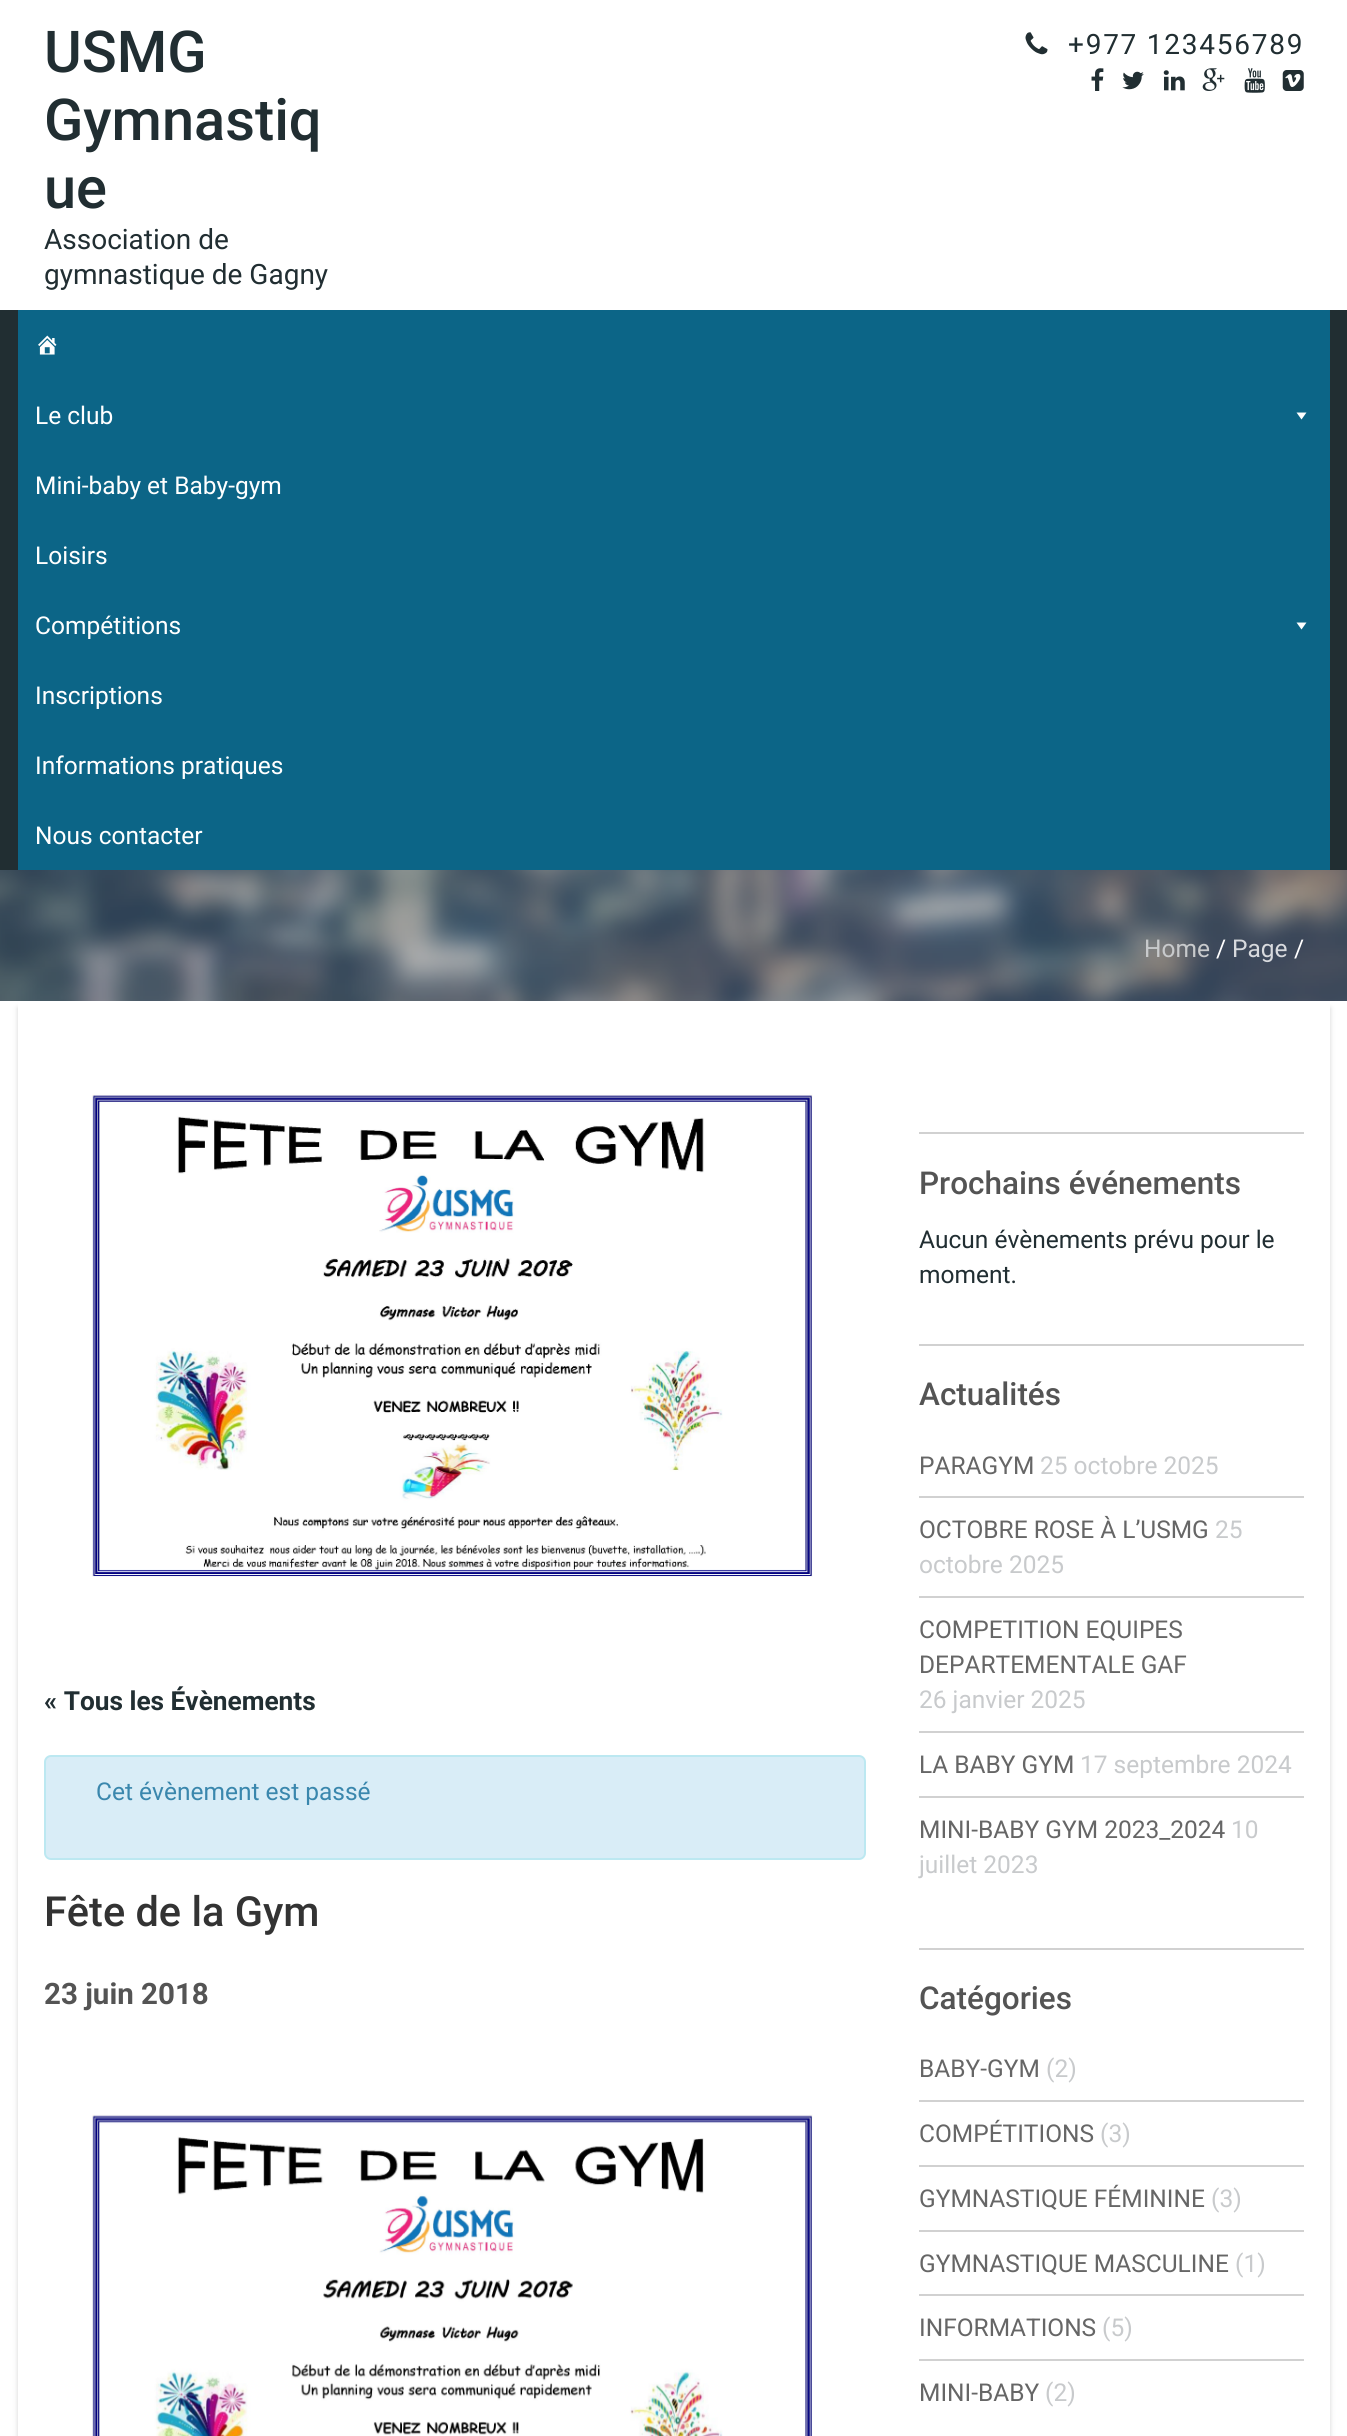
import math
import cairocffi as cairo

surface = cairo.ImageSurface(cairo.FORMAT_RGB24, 1347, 2436)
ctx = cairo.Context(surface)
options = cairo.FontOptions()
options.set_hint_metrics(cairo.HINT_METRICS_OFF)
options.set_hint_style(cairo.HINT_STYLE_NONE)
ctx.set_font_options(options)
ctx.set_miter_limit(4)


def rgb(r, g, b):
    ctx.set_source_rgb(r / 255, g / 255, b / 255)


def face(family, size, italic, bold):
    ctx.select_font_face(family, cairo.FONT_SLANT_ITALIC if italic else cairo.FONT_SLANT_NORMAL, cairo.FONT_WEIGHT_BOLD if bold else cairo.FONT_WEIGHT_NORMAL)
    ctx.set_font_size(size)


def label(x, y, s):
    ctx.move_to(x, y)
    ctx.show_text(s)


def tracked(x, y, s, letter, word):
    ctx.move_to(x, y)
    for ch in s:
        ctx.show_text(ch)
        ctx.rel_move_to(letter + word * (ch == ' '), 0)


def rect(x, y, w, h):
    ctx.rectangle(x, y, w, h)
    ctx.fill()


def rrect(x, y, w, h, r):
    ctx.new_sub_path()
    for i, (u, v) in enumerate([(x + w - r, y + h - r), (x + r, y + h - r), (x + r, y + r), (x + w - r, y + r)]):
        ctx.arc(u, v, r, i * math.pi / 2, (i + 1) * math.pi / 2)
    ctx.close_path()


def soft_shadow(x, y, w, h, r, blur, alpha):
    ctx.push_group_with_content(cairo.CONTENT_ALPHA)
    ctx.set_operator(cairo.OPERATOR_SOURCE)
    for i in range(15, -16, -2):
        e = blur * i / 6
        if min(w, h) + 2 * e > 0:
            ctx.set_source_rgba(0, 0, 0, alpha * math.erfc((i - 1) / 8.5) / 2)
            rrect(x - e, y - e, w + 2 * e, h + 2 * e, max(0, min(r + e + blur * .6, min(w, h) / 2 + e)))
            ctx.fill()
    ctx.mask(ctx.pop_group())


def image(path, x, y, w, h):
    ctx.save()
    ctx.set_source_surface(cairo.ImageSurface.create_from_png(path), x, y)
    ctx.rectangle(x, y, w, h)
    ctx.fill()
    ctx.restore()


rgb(255, 255, 255)
ctx.paint()
face('Roboto Medium', 57.75, 0, 0)
rgb(33, 46, 50)
label(44, 72, 'USMG')
label(44, 140, 'Gymnastiq')
label(44, 208, 'ue')
face('Roboto', 28, 0, 0)
label(44, 249, 'Association de')
label(44, 284, 'gymnastique de Gagny')
image('image0.png', 1025, 32, 23, 23)
tracked(1068, 54, '+977 123456789', 1.75, 0)
image('image1.png', 1091, 68, 13, 23)
image('image2.png', 1122, 71, 22, 19)
image('image3.png', 1163, 70, 22, 21)
image('image4.png', 1202, 68, 23, 23)
image('image5.png', 1244, 68, 21, 25)
image('image6.png', 1282, 70, 22, 21)
rect(0, 310, 1347, 560)
rgb(12, 101, 135)
rect(18, 310, 1312, 560)
image('image7.png', 38, 335, 19, 20)
face('Roboto', 24.5, 0, 0)
rgb(255, 255, 255)
label(35, 424, 'Le club')
ctx.new_path()
ctx.move_to(1306.5, 412.5)
ctx.line_to(1301.5, 419.5)
ctx.line_to(1296.5, 412.5)
ctx.close_path()
ctx.fill()
label(35, 494, 'Mini-baby et Baby-gym')
label(35, 564, 'Loisirs')
label(35, 634, 'Compétitions')
ctx.new_path()
ctx.move_to(1306.5, 622.5)
ctx.line_to(1301.5, 629.5)
ctx.line_to(1296.5, 622.5)
ctx.close_path()
ctx.fill()
label(35, 704, 'Inscriptions')
label(35, 774, 'Informations pratiques')
label(35, 844, 'Nous contacter')
image('image8.png', 0, 870, 1347, 131)
rgb(200, 202, 204)
label(1144, 957, 'Home')
rgb(255, 255, 255)
label(1216, 957, '/')
rgb(216, 218, 222)
label(1232, 957, 'Page')
rgb(255, 255, 255)
label(1294, 957, '/')
ctx.save()
ctx.set_fill_rule(cairo.FILL_RULE_EVEN_ODD)
ctx.new_path()
ctx.move_to(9, 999)
ctx.line_to(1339, 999)
ctx.line_to(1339, 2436)
ctx.line_to(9, 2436)
ctx.close_path()
ctx.move_to(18, 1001)
ctx.line_to(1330, 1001)
ctx.line_to(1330, 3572)
ctx.line_to(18, 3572)
ctx.close_path()
ctx.clip()
rgb(212, 212, 212)
soft_shadow(18, 1008, 1312, 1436, 0, 2.5, 1)
ctx.restore()
image('image9.png', 92, 1093, 721, 484)
face('Roboto', 26.25, 0, 1)
rgb(33, 46, 50)
label(44, 1710, '« Tous les Évènements')
rgb(217, 237, 247)
rrect(45, 1756, 820, 103, 6)
ctx.fill_preserve()
rgb(188, 232, 241)
ctx.stroke()
face('Roboto', 24.5, 0, 0)
rgb(58, 135, 173)
label(96, 1800, 'Cet évènement est passé')
face('Roboto Medium', 41.5, 0, 0)
rgb(51, 51, 51)
label(44, 1926, 'Fête de la Gym')
face('Roboto', 29.5, 0, 1)
rgb(84, 84, 84)
label(44, 2004, '23 juin 2018')
image('image10.png', 92, 2114, 721, 322)
rgb(209, 209, 209)
rect(919, 1132, 385, 2)
face('Roboto Medium', 31.5, 0, 0)
rgb(84, 84, 84)
label(919, 1194, 'Prochains événements')
face('Roboto', 24.5, 0, 0)
rgb(33, 46, 50)
label(919, 1248, 'Aucun évènements prévu pour le')
label(919, 1283, 'moment.')
rgb(209, 209, 209)
rect(919, 1344, 385, 2)
face('Roboto Medium', 31.5, 0, 0)
rgb(84, 84, 84)
label(919, 1405, 'Actualités')
rgb(209, 209, 209)
rect(919, 1496, 385, 2)
face('Roboto', 24.5, 0, 0)
rgb(102, 102, 102)
label(919, 1474, 'PARAGYM')
rgb(200, 202, 204)
label(1040, 1474, '25 octobre 2025')
rgb(209, 209, 209)
rect(919, 1596, 385, 2)
rgb(102, 102, 102)
label(919, 1538, 'OCTOBRE ROSE À L’USMG')
rgb(200, 202, 204)
label(1215, 1538, '25')
label(919, 1573, 'octobre 2025')
rgb(209, 209, 209)
rect(919, 1731, 385, 2)
rgb(102, 102, 102)
label(919, 1638, 'COMPETITION EQUIPES')
label(919, 1673, 'DEPARTEMENTALE GAF')
rgb(200, 202, 204)
label(919, 1708, '26 janvier 2025')
rgb(209, 209, 209)
rect(919, 1796, 385, 2)
rgb(102, 102, 102)
label(919, 1773, 'LA BABY GYM')
rgb(200, 202, 204)
label(1080, 1773, '17 septembre 2024')
rgb(102, 102, 102)
label(919, 1838, 'MINI-BABY GYM 2023_2024')
rgb(200, 202, 204)
label(1231, 1838, '10')
label(919, 1873, 'juillet 2023')
rgb(209, 209, 209)
rect(919, 1948, 385, 2)
face('Roboto Medium', 31.5, 0, 0)
rgb(84, 84, 84)
label(919, 2009, 'Catégories')
rgb(209, 209, 209)
rect(919, 2100, 385, 2)
face('Roboto', 24.5, 0, 0)
rgb(102, 102, 102)
label(919, 2077, 'BABY-GYM')
rgb(200, 202, 204)
label(1046, 2077, '(2)')
rgb(209, 209, 209)
rect(919, 2165, 385, 2)
rgb(102, 102, 102)
label(919, 2142, 'COMPÉTITIONS')
rgb(200, 202, 204)
label(1100, 2142, '(3)')
rgb(209, 209, 209)
rect(919, 2230, 385, 2)
rgb(102, 102, 102)
label(919, 2207, 'GYMNASTIQUE FÉMININE')
rgb(200, 202, 204)
label(1211, 2207, '(3)')
rgb(209, 209, 209)
rect(919, 2294, 385, 2)
rgb(102, 102, 102)
label(919, 2272, 'GYMNASTIQUE MASCULINE')
rgb(200, 202, 204)
label(1235, 2272, '(1)')
rgb(209, 209, 209)
rect(919, 2359, 385, 2)
rgb(102, 102, 102)
label(919, 2336, 'INFORMATIONS')
rgb(200, 202, 204)
label(1102, 2336, '(5)')
rgb(102, 102, 102)
label(919, 2401, 'MINI-BABY')
rgb(200, 202, 204)
label(1045, 2401, '(2)')
surface.write_to_png('render.png')
